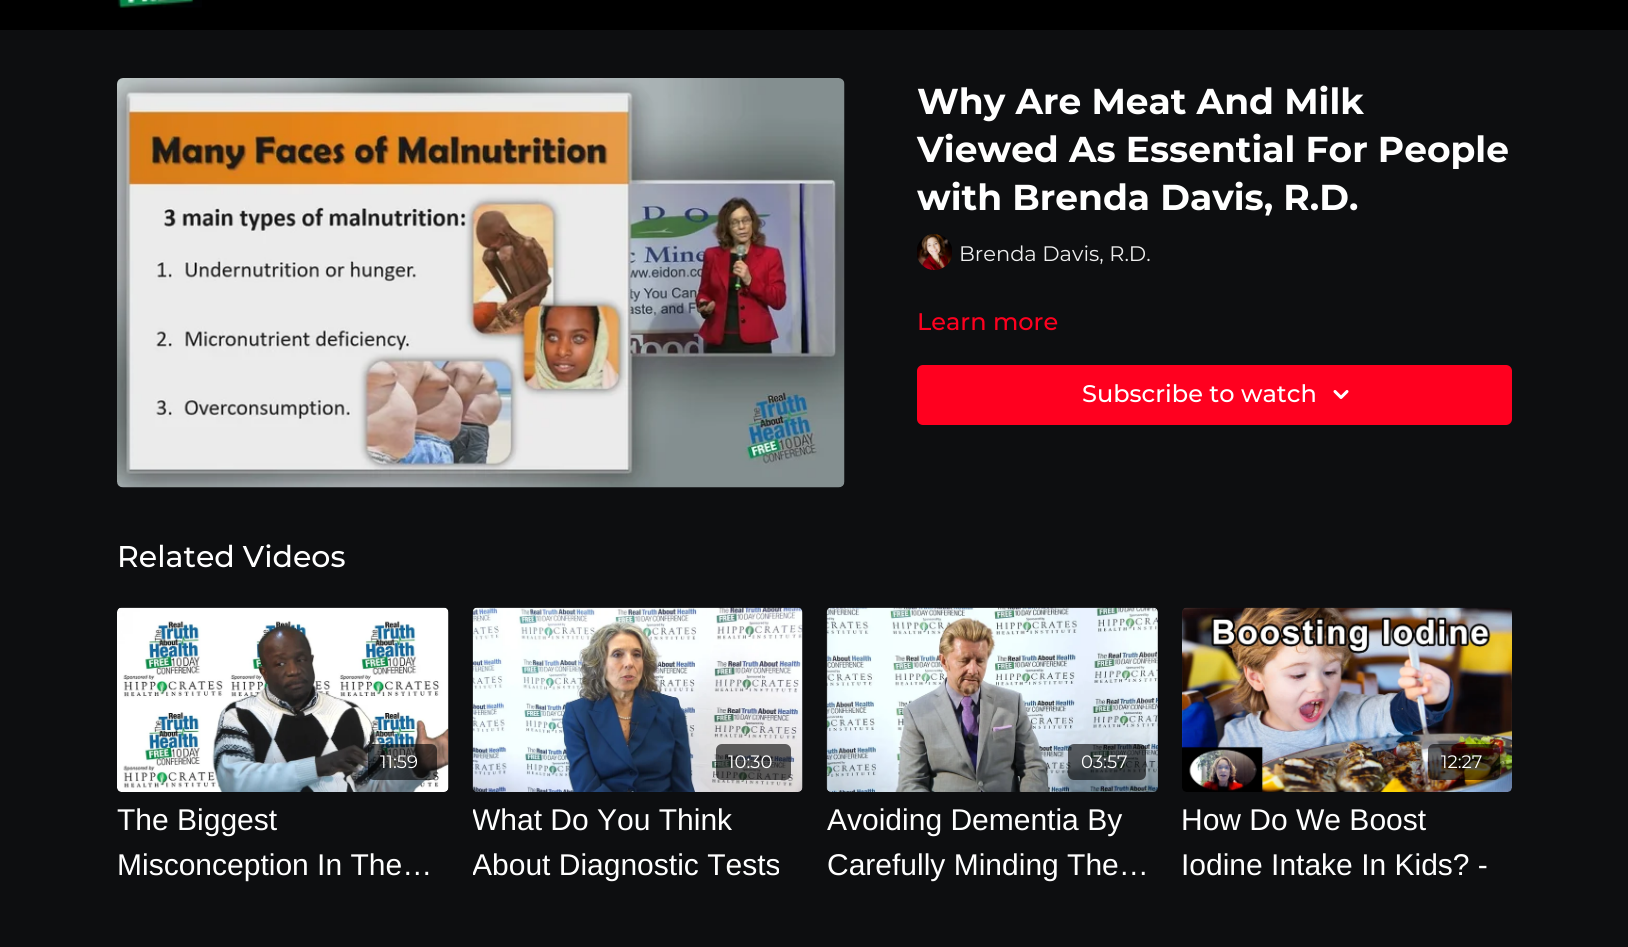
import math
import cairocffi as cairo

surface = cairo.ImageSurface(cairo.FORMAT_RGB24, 1628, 947)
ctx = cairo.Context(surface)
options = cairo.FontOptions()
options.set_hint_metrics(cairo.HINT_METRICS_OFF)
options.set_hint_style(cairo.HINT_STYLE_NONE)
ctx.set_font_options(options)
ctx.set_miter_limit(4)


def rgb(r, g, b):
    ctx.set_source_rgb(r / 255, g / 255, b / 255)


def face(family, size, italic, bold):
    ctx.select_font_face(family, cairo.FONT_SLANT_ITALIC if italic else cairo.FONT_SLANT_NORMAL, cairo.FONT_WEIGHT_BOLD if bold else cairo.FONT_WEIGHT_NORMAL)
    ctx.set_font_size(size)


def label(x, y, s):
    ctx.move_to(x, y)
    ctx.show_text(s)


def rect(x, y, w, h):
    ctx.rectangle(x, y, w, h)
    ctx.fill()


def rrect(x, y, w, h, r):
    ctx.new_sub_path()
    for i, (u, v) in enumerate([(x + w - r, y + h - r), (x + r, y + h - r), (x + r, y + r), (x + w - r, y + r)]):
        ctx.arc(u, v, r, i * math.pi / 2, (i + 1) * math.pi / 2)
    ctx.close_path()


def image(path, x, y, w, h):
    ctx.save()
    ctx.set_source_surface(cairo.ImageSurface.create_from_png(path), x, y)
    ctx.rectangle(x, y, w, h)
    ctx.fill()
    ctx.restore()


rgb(13, 14, 16)
ctx.paint()
rgb(0, 0, 0)
rect(0, 0, 1628, 30)
image('image0.png', 117, 0, 85, 8)
image('image1.png', 117, 78, 728, 410)
face('Montserrat', 36, 0, 1)
rgb(255, 255, 255)
label(917, 114, 'Why Are Meat And Milk')
label(917, 162, 'Viewed As Essential For People')
label(917, 210, 'with Brenda Davis, R.D.')
image('image2.png', 917, 234, 35, 36)
face('Montserrat', 21, 0, 0)
rgb(238, 238, 238)
label(959, 261, 'Brenda Davis, R.D.')
face('Montserrat Medium', 24, 0, 0)
rgb(255, 0, 31)
label(917, 330, 'Learn more')
rrect(917, 365, 595, 60, 6)
ctx.fill()
rgb(255, 255, 255)
label(1082, 402, 'Subscribe to watch')
image('image3.png', 1333, 390, 16, 9)
face('Montserrat Medium', 30, 0, 0)
label(117, 567, 'Related Videos')
gradient = cairo.LinearGradient(117, 700, 449, 700)
gradient.add_color_stop_rgba(0.08, 0.173, 0.176, 0.184, 1)
gradient.add_color_stop_rgba(0.18, 0.165, 0.169, 0.176, 1)
gradient.add_color_stop_rgba(0.33, 0.157, 0.161, 0.165, 1)
ctx.set_source(gradient)
rrect(117, 608, 332, 184, 6)
ctx.fill()
image('image4.png', 117, 607, 332, 185)
ctx.set_source_rgba(0, 0, 0, 0.6)
rrect(368, 744, 69, 36, 6)
ctx.fill()
face('Montserrat', 18, 0, 0)
rgb(255, 255, 255)
label(380, 768, '11:59')
face('Liberation Sans', 30, 0, 0)
label(117, 830, 'The Biggest')
label(117, 875, 'Misconception In The…')
gradient = cairo.LinearGradient(473, 700, 803, 700)
gradient.add_color_stop_rgba(0.08, 0.173, 0.176, 0.184, 1)
gradient.add_color_stop_rgba(0.18, 0.165, 0.169, 0.176, 1)
gradient.add_color_stop_rgba(0.33, 0.157, 0.161, 0.165, 1)
ctx.set_source(gradient)
rrect(473, 608, 330, 184, 6)
ctx.fill()
image('image5.png', 472, 607, 331, 185)
ctx.set_source_rgba(0, 0, 0, 0.6)
rrect(716, 744, 75, 36, 6)
ctx.fill()
face('Montserrat', 18, 0, 0)
rgb(255, 255, 255)
label(728, 768, '10:30')
ctx.save()
ctx.rectangle(473, 797, 330, 90)
ctx.clip()
face('Liberation Sans', 30, 0, 0)
label(472, 830, 'What Do You Think')
label(472, 875, 'About Diagnostic Tests')
ctx.restore()
image('image6.png', 826, 607, 332, 185)
ctx.set_source_rgba(0, 0, 0, 0.6)
rrect(1068, 744, 78, 36, 6)
ctx.fill()
rgb(255, 255, 255)
label(1081, 768, '03:57')
face('Liberation Sans', 30, 0, 0)
label(827, 830, 'Avoiding Dementia By')
label(827, 875, 'Carefully Minding The…')
image('image7.png', 1182, 607, 330, 185)
ctx.set_source_rgba(0, 0, 0, 0.6)
rrect(1428, 744, 72, 36, 6)
ctx.fill()
face('Montserrat', 18, 0, 0)
rgb(255, 255, 255)
label(1441, 768, '12:27')
face('Liberation Sans', 30, 0, 0)
label(1181, 830, 'How Do We Boost')
label(1181, 875, 'Iodine Intake In Kids? -')
surface.write_to_png('render.png')
